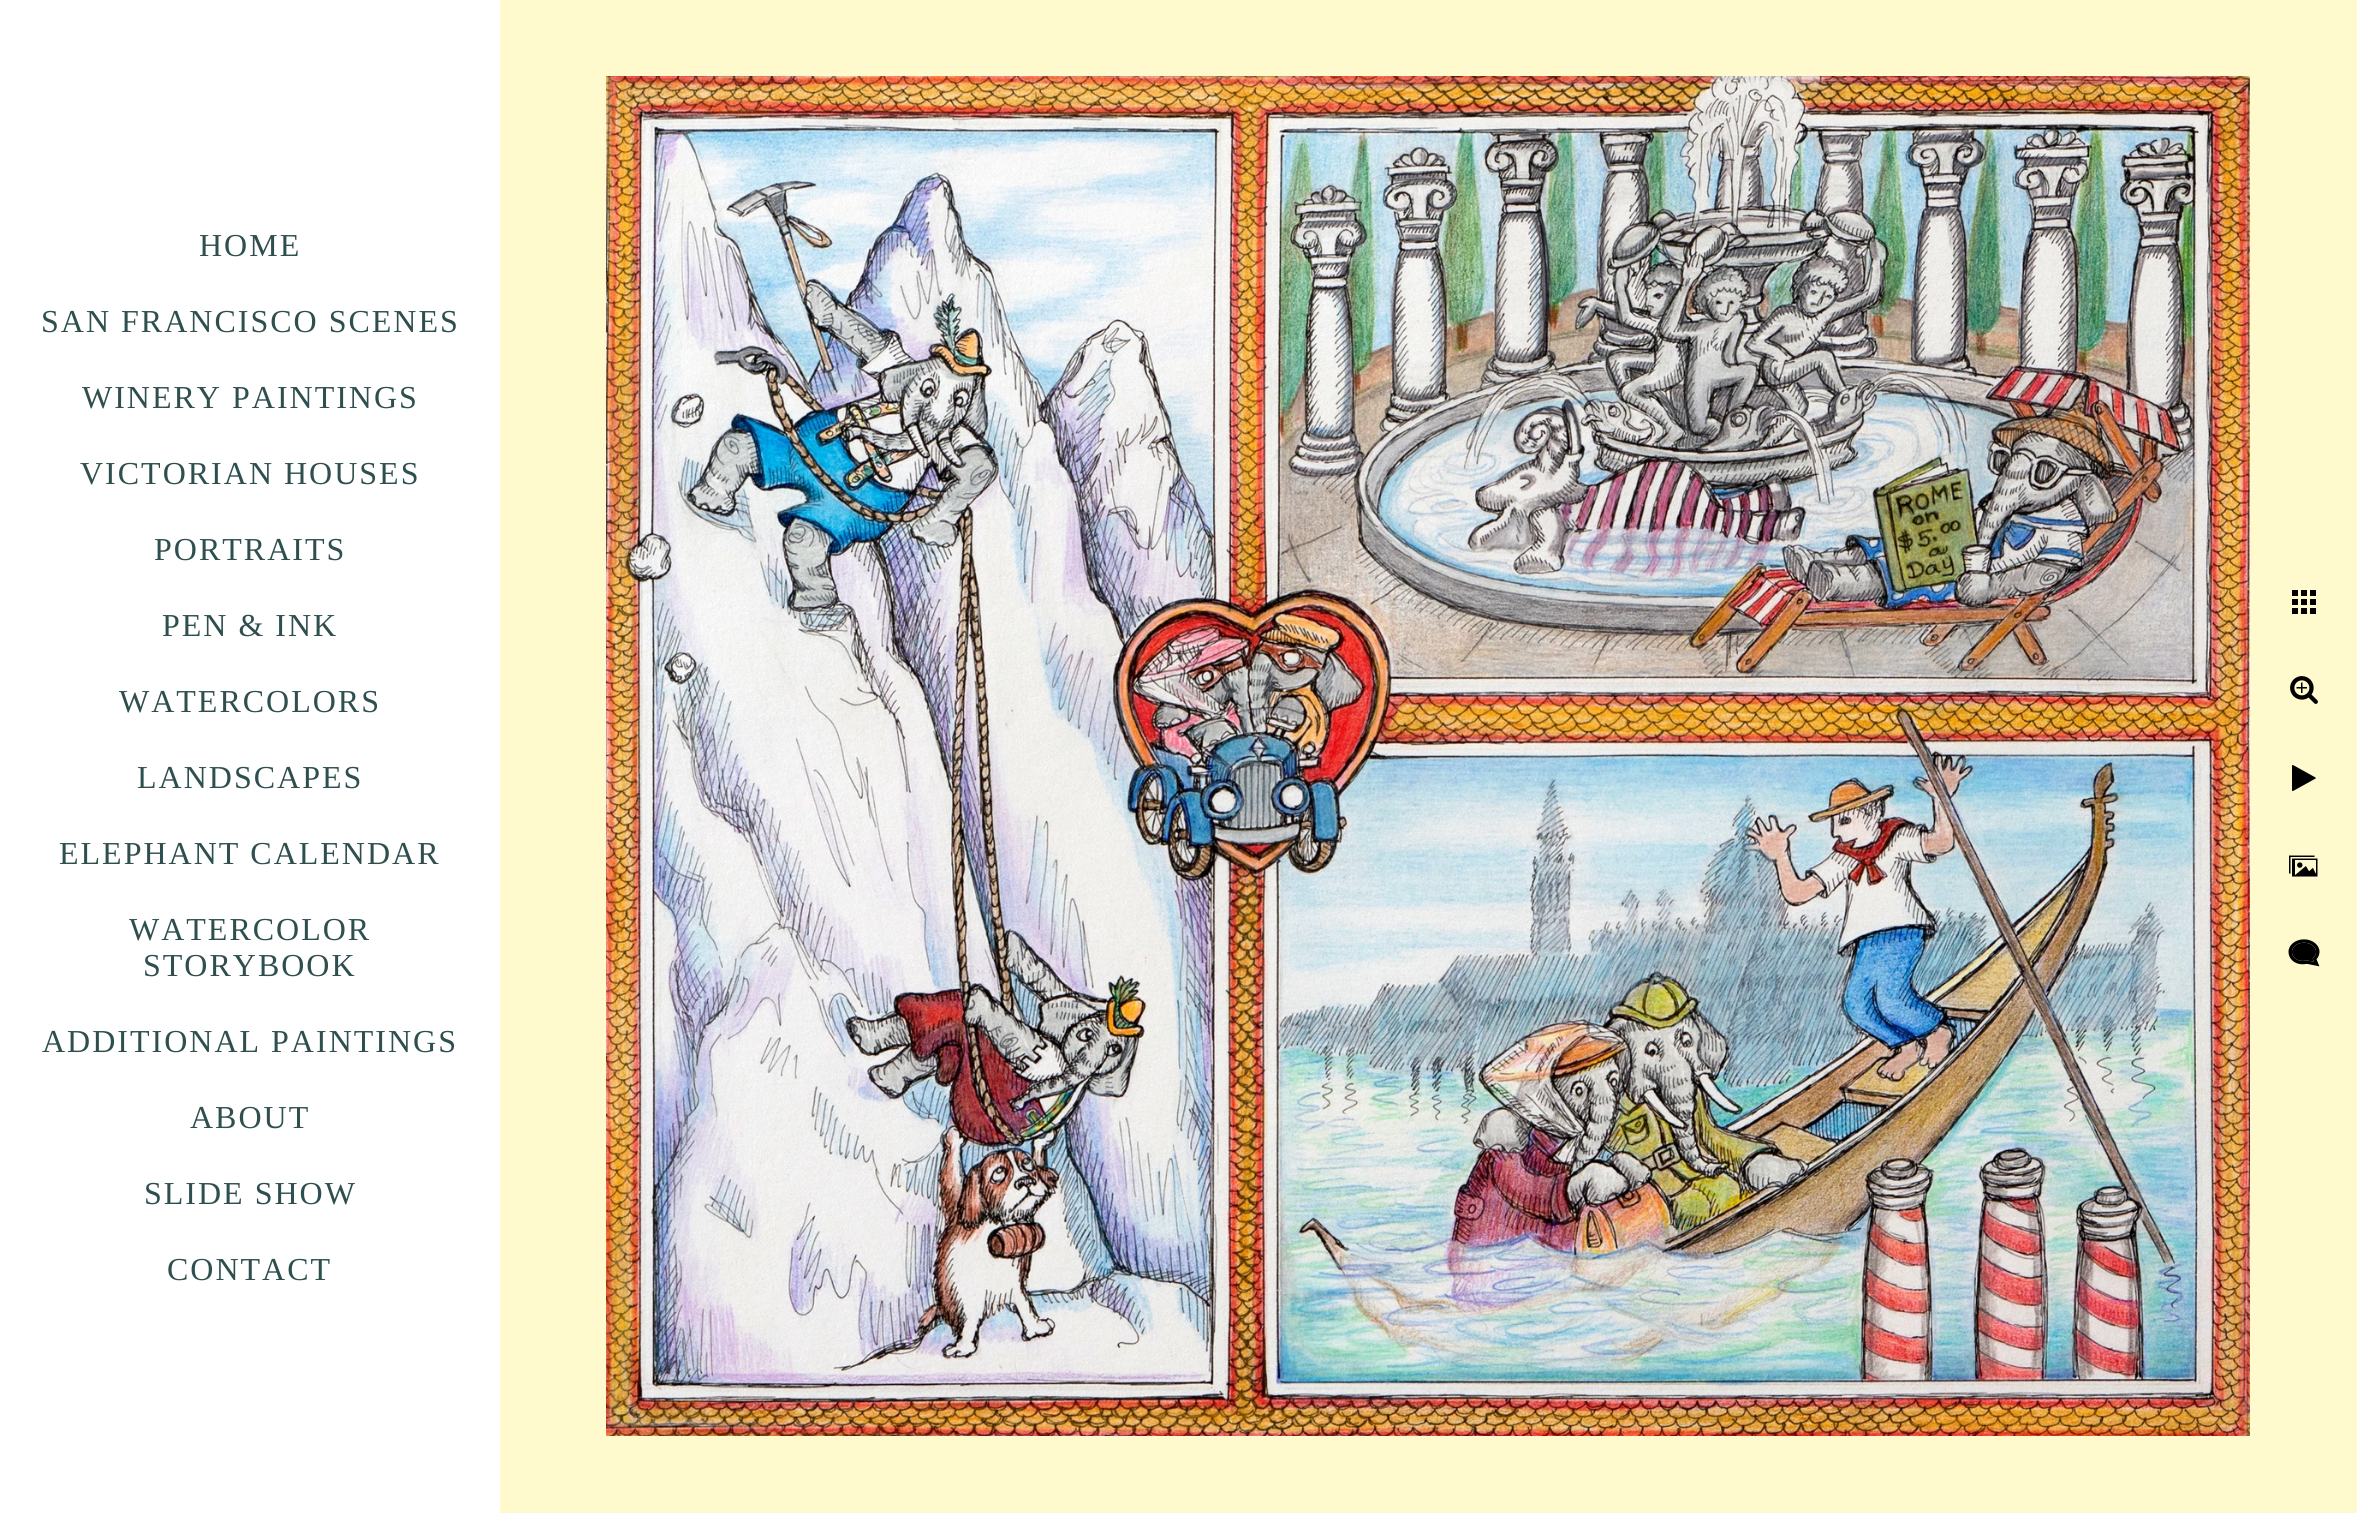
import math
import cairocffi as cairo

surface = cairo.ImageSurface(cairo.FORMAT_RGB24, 2357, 1513)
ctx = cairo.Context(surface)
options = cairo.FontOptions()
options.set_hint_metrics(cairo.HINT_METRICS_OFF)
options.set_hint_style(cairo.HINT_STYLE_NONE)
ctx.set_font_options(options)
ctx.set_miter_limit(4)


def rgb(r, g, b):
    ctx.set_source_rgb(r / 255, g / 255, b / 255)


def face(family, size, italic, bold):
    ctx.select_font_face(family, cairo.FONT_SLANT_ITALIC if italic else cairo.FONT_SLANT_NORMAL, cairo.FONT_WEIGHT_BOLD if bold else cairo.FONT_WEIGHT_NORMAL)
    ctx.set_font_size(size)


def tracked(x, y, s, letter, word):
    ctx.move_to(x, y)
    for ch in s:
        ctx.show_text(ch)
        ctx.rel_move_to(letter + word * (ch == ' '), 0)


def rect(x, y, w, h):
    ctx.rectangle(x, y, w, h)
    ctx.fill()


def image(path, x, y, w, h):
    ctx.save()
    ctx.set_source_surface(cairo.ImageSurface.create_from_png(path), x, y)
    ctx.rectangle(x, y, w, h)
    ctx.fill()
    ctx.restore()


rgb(255, 250, 205)
ctx.paint()
rgb(255, 255, 255)
rect(0, 0, 500, 1513)
face('Liberation Serif', 32, 0, 0)
rgb(47, 79, 79)
tracked(199, 256, 'HOME', 2, 0)
tracked(41, 332, 'SAN FRANCISCO SCENES', 2, 0)
tracked(82, 408, 'WINERY PAINTINGS', 2, 0)
tracked(80, 484, 'VICTORIAN HOUSES', 2, 0)
tracked(154, 560, 'PORTRAITS', 2, 0)
tracked(162, 636, 'PEN & INK', 2, 0)
tracked(119, 712, 'WATERCOLORS', 2, 0)
tracked(137, 788, 'LANDSCAPES', 2, 0)
tracked(59, 864, 'ELEPHANT CALENDAR', 2, 0)
tracked(129, 940, 'WATERCOLOR', 2, 0)
tracked(143, 976, 'STORYBOOK', 2, 0)
tracked(42, 1052, 'ADDITIONAL PAINTINGS', 2, 0)
tracked(190, 1128, 'ABOUT', 2, 0)
tracked(144, 1204, 'SLIDE SHOW', 2, 0)
tracked(167, 1280, 'CONTACT', 2, 0)
image('image0.png', 606, 76, 1644, 1360)
image('image1.png', 2292, 590, 24, 24)
image('image2.png', 2290, 676, 28, 28)
image('image3.png', 2292, 765, 24, 26)
image('image4.png', 2289, 855, 29, 22)
image('image5.png', 2288, 939, 32, 28)
surface.write_to_png('render.png')
